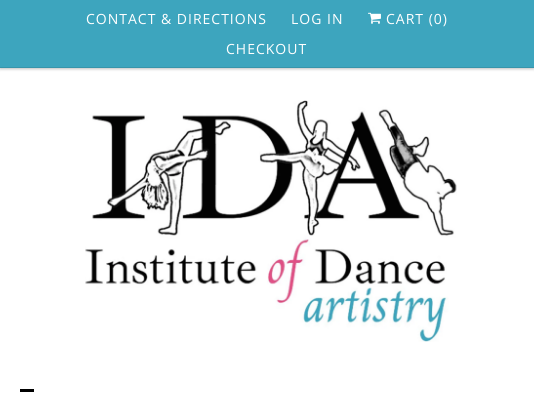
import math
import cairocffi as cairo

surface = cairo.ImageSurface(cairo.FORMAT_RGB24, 534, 393)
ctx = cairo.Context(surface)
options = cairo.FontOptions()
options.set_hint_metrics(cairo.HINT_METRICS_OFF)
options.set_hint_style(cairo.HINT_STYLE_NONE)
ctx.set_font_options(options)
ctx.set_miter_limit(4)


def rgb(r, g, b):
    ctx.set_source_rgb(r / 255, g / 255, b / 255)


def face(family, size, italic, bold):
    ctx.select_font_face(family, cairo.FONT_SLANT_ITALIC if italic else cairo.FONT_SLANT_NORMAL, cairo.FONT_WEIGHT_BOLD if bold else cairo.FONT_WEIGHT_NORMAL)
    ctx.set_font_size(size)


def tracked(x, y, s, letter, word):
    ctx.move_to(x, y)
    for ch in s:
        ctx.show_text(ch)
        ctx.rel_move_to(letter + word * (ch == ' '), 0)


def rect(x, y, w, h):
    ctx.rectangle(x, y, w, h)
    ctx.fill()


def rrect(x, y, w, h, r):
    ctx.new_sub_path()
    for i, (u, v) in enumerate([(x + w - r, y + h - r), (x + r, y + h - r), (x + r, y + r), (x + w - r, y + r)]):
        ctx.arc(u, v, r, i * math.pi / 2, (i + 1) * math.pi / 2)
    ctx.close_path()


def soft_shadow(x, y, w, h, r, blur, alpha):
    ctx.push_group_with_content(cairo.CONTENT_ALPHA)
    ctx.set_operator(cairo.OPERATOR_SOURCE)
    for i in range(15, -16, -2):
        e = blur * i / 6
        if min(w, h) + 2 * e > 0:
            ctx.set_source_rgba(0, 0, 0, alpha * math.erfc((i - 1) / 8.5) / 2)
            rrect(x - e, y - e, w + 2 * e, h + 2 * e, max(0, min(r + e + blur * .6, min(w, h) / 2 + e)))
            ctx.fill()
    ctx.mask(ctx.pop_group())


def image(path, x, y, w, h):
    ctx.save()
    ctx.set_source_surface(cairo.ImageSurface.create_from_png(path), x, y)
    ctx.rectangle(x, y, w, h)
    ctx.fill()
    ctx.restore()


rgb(255, 255, 255)
ctx.paint()
rgb(0, 0, 0)
soft_shadow(0, 1, 534, 68, 0, 1.5, 0.25)
rgb(61, 165, 190)
rect(0, 0, 534, 67)
rgb(55, 149, 171)
rect(0, 67, 534, 1)
face('Open Sans', 14, 0, 0)
rgb(255, 255, 255)
tracked(86, 24, 'CONTACT & DIRECTIONS', 1, 0)
tracked(291, 24, 'LOG IN', 1, 0)
image('image0.png', 368, 12, 13, 12)
tracked(386, 24, 'CART (0)', 1, 0)
tracked(226, 54, 'CHECKOUT', 1, 0)
image('image1.png', 85, 100, 372, 242)
rgb(0, 0, 0)
rect(20, 389, 14, 3)
surface.write_to_png('render.png')
